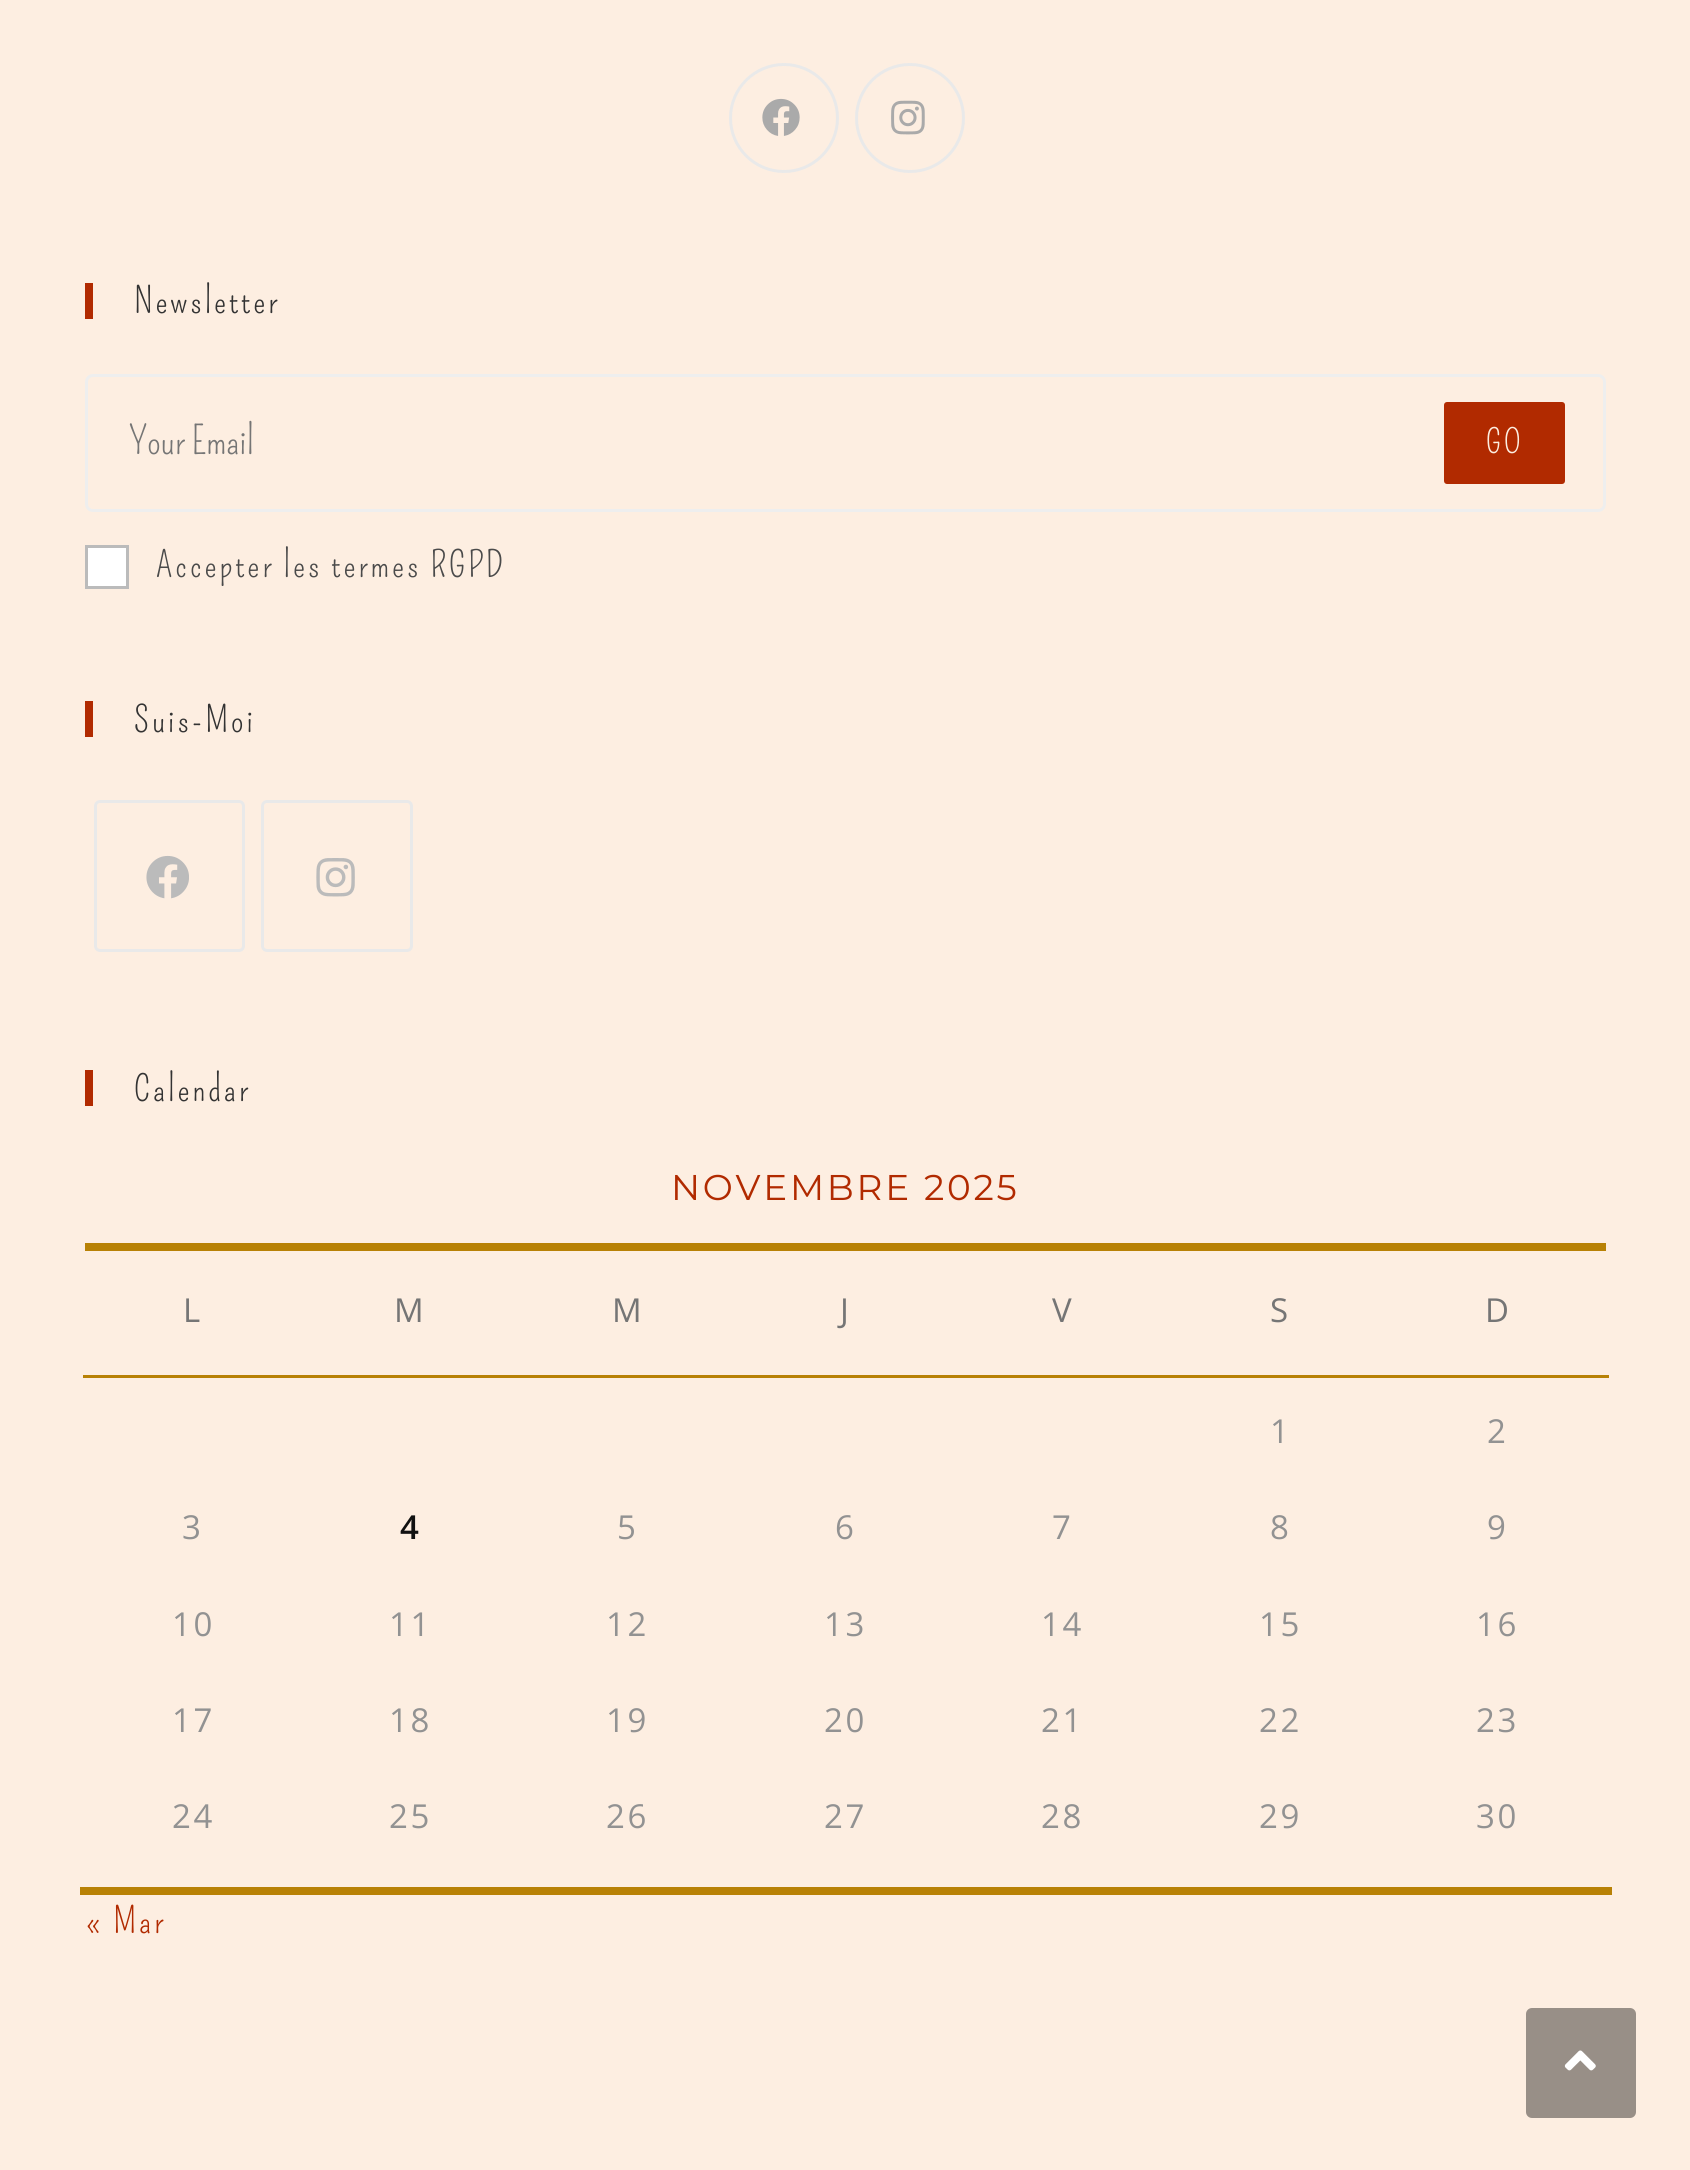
import math
import cairocffi as cairo

surface = cairo.ImageSurface(cairo.FORMAT_RGB24, 1690, 2170)
ctx = cairo.Context(surface)
options = cairo.FontOptions()
options.set_hint_metrics(cairo.HINT_METRICS_OFF)
options.set_hint_style(cairo.HINT_STYLE_NONE)
ctx.set_font_options(options)
ctx.set_miter_limit(4)


def rgb(r, g, b):
    ctx.set_source_rgb(r / 255, g / 255, b / 255)


def face(family, size, italic, bold):
    ctx.select_font_face(family, cairo.FONT_SLANT_ITALIC if italic else cairo.FONT_SLANT_NORMAL, cairo.FONT_WEIGHT_BOLD if bold else cairo.FONT_WEIGHT_NORMAL)
    ctx.set_font_size(size)


def label(x, y, s):
    ctx.move_to(x, y)
    ctx.show_text(s)


def tracked(x, y, s, letter, word):
    ctx.move_to(x, y)
    for ch in s:
        ctx.show_text(ch)
        ctx.rel_move_to(letter + word * (ch == ' '), 0)


def rect(x, y, w, h):
    ctx.rectangle(x, y, w, h)
    ctx.fill()


def rrect(x, y, w, h, r):
    ctx.new_sub_path()
    for i, (u, v) in enumerate([(x + w - r, y + h - r), (x + r, y + h - r), (x + r, y + r), (x + w - r, y + r)]):
        ctx.arc(u, v, r, i * math.pi / 2, (i + 1) * math.pi / 2)
    ctx.close_path()


def image(path, x, y, w, h):
    ctx.save()
    ctx.set_source_surface(cairo.ImageSurface.create_from_png(path), x, y)
    ctx.rectangle(x, y, w, h)
    ctx.fill()
    ctx.restore()


rgb(253, 238, 225)
ctx.paint()
ctx.arc(784, 118, 53.5, 0, 2 * math.pi)
rgb(233, 233, 233)
ctx.set_line_width(3)
ctx.stroke()
image('image0.png', 762, 98, 38, 38)
ctx.arc(910, 118, 53.5, 0, 2 * math.pi)
ctx.stroke()
image('image1.png', 891, 100, 34, 35)
rgb(177, 42, 0)
rect(85, 283, 8, 36)
face('Pompiere', 35.75, 0, 0)
rgb(51, 51, 51)
tracked(134, 313, 'Newsletter', 2.75, 0)
rrect(86.5, 375.5, 1518, 135, 6.5)
rgb(238, 238, 238)
ctx.stroke()
face('Pompiere', 38.5, 0, 0)
rgb(117, 117, 117)
label(129, 454, 'Your Email')
rgb(177, 42, 0)
rrect(1444, 402, 121, 82, 3)
ctx.fill()
face('Pompiere', 33, 0, 0)
rgb(253, 238, 225)
tracked(1486, 453, 'GO', 3, 0)
rgb(255, 255, 255)
ctx.rectangle(86.5, 546.5, 41, 41)
ctx.fill_preserve()
rgb(187, 187, 187)
ctx.stroke()
face('Pompiere', 35.75, 0, 0)
rgb(74, 74, 74)
tracked(156, 577, 'Accepter les termes RGPD', 2.75, 0)
rgb(177, 42, 0)
rect(85, 701, 8, 36)
rgb(51, 51, 51)
tracked(134, 732, 'Suis-Moi', 2.75, 0)
rrect(95.5, 801.5, 148, 149, 4.5)
rgb(233, 233, 233)
ctx.stroke()
image('image2.png', 146, 855, 43, 44)
rrect(262.5, 801.5, 149, 149, 4.5)
ctx.stroke()
image('image3.png', 316, 858, 39, 39)
rgb(177, 42, 0)
rect(85, 1070, 8, 36)
rgb(51, 51, 51)
tracked(134, 1101, 'Calendar', 2.75, 0)
rgb(184, 129, 5)
rect(85, 1243, 1521, 8)
face('Montserrat', 35.75, 0, 0)
rgb(177, 42, 0)
tracked(671, 1200, 'NOVEMBRE 2025', 2.75, 0)
face('Open Sans', 33, 0, 0)
rgb(117, 117, 117)
tracked(183, 1322, 'L', 2.75, 0)
tracked(394, 1322, 'M', 2.75, 0)
tracked(612, 1322, 'M', 2.75, 0)
tracked(840, 1322, 'J', 2.75, 0)
tracked(1052, 1322, 'V', 2.75, 0)
tracked(1270, 1322, 'S', 2.75, 0)
rgb(184, 129, 5)
rect(83, 1375, 1526, 3)
rgb(117, 117, 117)
tracked(1485, 1322, 'D', 2.75, 0)
rgb(184, 129, 5)
rect(80, 1887, 1532, 8)
rgb(146, 146, 146)
tracked(1270, 1443, '1', 2.75, 0)
tracked(1487, 1443, '2', 2.75, 0)
tracked(182, 1539, '3', 2.75, 0)
face('Open Sans SemiBold', 33, 0, 0)
rgb(17, 17, 17)
tracked(400, 1539, '4', 2.75, 0)
face('Open Sans', 33, 0, 0)
rgb(146, 146, 146)
tracked(617, 1539, '5', 2.75, 0)
tracked(835, 1539, '6', 2.75, 0)
tracked(1052, 1539, '7', 2.75, 0)
tracked(1270, 1539, '8', 2.75, 0)
tracked(1487, 1539, '9', 2.75, 0)
tracked(172, 1636, '10', 2.75, 0)
tracked(389, 1636, '11', 2.75, 0)
tracked(606, 1636, '12', 2.75, 0)
tracked(824, 1636, '13', 2.75, 0)
tracked(1041, 1636, '14', 2.75, 0)
tracked(1259, 1636, '15', 2.75, 0)
tracked(1476, 1636, '16', 2.75, 0)
tracked(172, 1732, '17', 2.75, 0)
tracked(389, 1732, '18', 2.75, 0)
tracked(606, 1732, '19', 2.75, 0)
tracked(824, 1732, '20', 2.75, 0)
tracked(1041, 1732, '21', 2.75, 0)
tracked(1259, 1732, '22', 2.75, 0)
tracked(1476, 1732, '23', 2.75, 0)
tracked(172, 1828, '24', 2.75, 0)
tracked(389, 1828, '25', 2.75, 0)
tracked(606, 1828, '26', 2.75, 0)
tracked(824, 1828, '27', 2.75, 0)
tracked(1041, 1828, '28', 2.75, 0)
tracked(1259, 1828, '29', 2.75, 0)
tracked(1476, 1828, '30', 2.75, 0)
face('Pompiere', 35.75, 0, 0)
rgb(177, 42, 0)
tracked(85, 1933, '« Mar', 2.75, 0)
rgb(152, 143, 135)
rrect(1526, 2008, 110, 110, 6)
ctx.fill()
image('image4.png', 1564, 2050, 32, 21)
surface.write_to_png('render.png')
